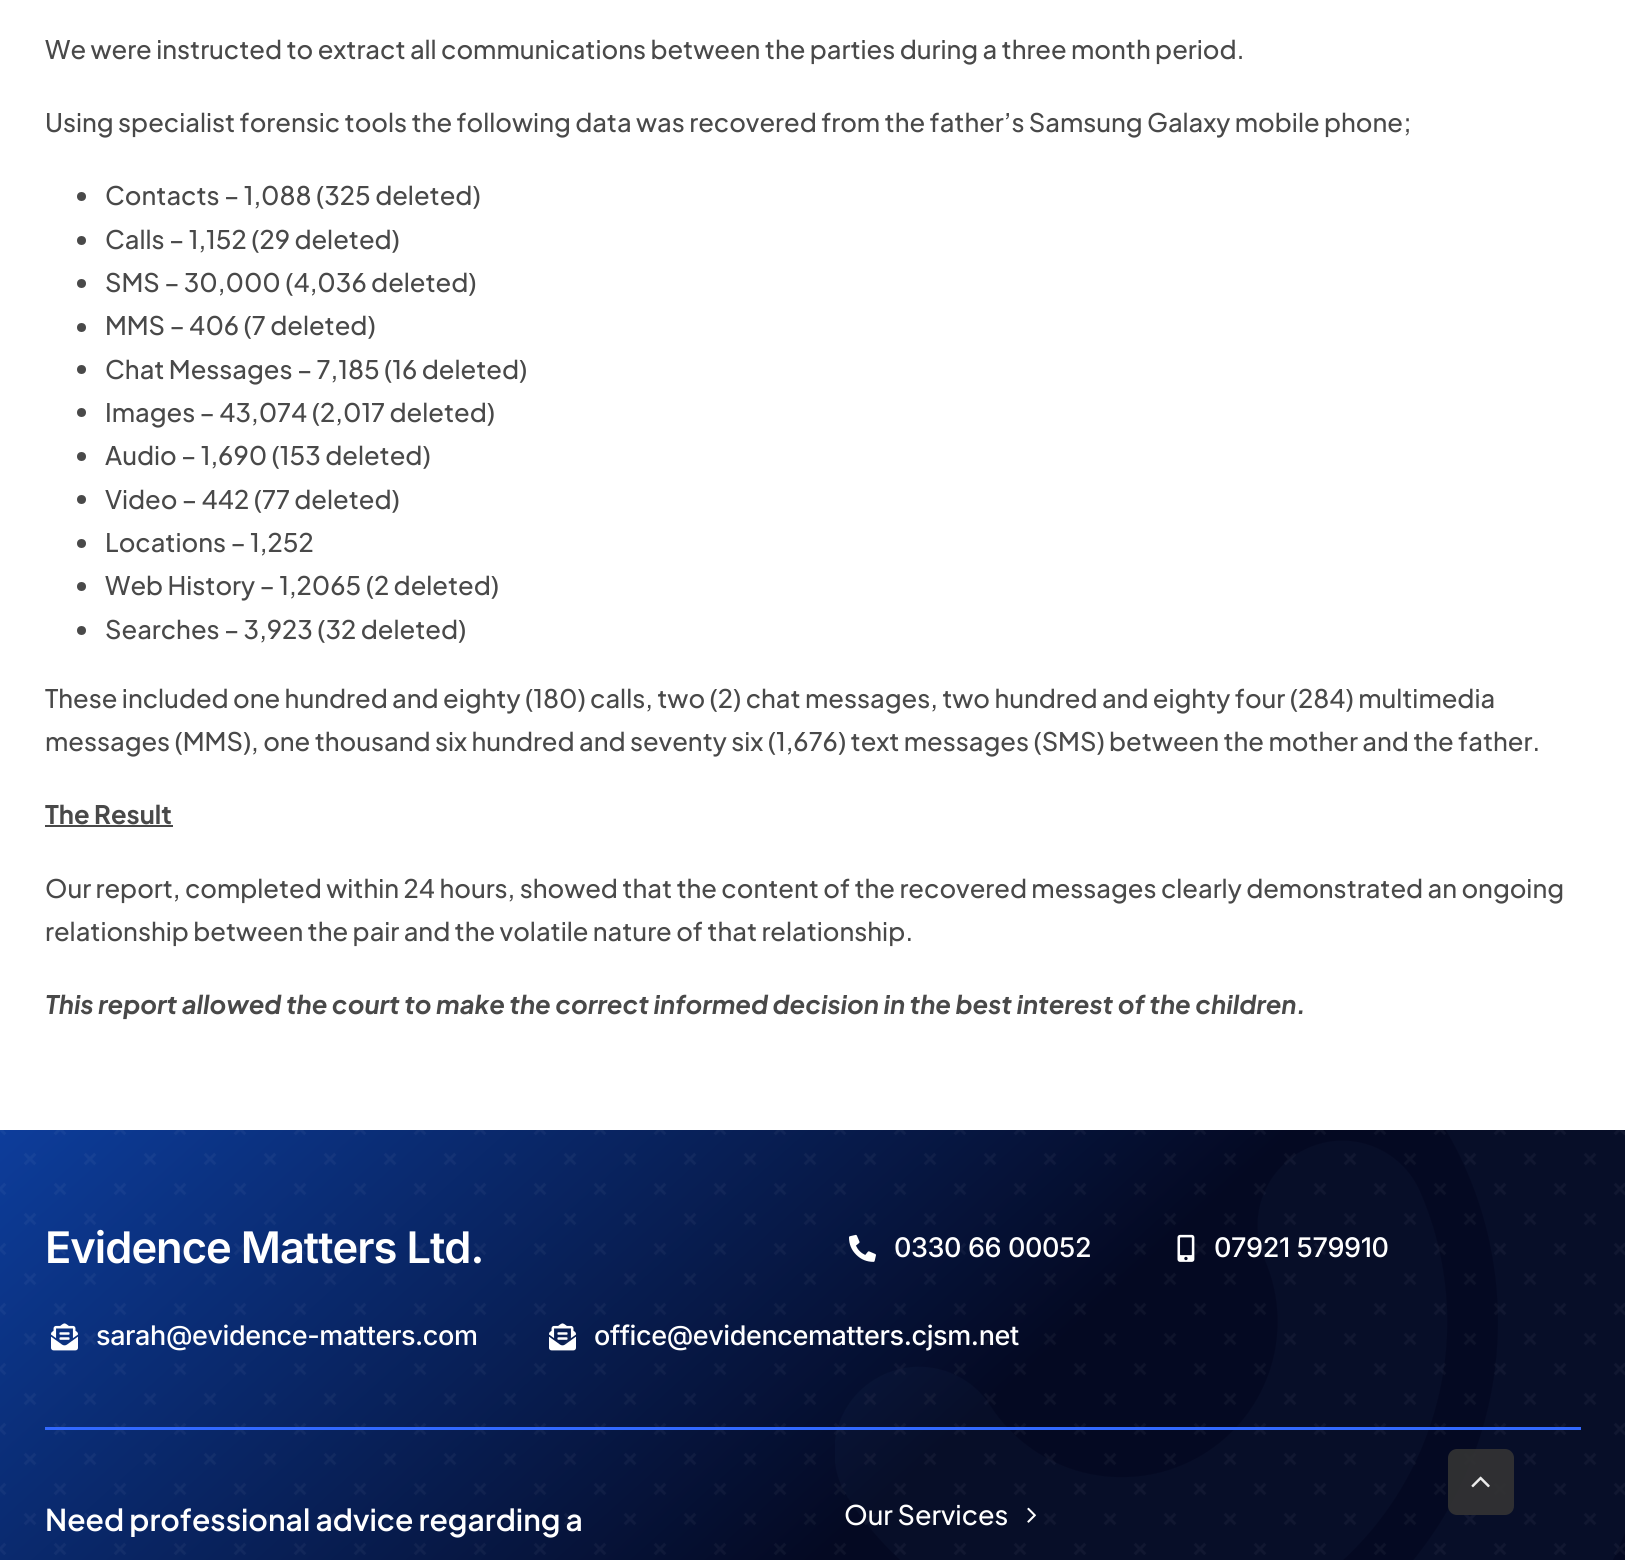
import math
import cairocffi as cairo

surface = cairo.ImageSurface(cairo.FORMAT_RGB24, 1625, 1560)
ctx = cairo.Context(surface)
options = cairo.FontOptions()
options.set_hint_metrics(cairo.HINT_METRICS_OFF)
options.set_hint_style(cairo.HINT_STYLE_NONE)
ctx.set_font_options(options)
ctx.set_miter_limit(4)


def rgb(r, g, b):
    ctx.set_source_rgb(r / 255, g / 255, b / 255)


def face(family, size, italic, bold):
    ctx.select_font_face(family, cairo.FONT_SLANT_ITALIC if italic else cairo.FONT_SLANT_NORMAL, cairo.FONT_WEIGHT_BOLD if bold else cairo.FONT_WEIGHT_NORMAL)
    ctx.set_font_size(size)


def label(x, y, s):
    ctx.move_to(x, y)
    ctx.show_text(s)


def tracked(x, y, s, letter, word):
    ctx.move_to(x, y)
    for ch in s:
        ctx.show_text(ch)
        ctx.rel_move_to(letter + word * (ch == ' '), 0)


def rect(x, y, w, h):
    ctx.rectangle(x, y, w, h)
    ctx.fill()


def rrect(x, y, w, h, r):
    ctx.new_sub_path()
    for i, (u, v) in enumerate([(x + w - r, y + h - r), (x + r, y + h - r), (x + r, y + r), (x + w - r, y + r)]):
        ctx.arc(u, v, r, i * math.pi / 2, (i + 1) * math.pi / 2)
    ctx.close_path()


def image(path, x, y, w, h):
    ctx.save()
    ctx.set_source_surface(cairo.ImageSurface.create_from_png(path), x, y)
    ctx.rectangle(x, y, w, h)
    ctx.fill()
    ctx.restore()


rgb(255, 255, 255)
ctx.paint()
face('Plus Jakarta Sans Medium', 25.5, 0, 0)
rgb(73, 73, 73)
label(45, 59, 'We were instructed to extract all communications between the parties during a three month period.')
label(45, 132, 'Using specialist forensic tools the following data was recovered from the father’s Samsung Galaxy mobile phone;')
ctx.new_path()
ctx.arc(81.5, 196.5, 4.5, 0, 2 * math.pi)
ctx.fill()
label(105, 205, 'Contacts – 1,088 (325 deleted)')
ctx.new_path()
ctx.arc(81.5, 240.5, 4.5, 0, 2 * math.pi)
ctx.fill()
label(105, 249, 'Calls – 1,152 (29 deleted)')
ctx.new_path()
ctx.arc(81.5, 283.5, 4.5, 0, 2 * math.pi)
ctx.fill()
label(105, 292, 'SMS – 30,000 (4,036 deleted)')
ctx.new_path()
ctx.arc(81.5, 327.5, 4.5, 0, 2 * math.pi)
ctx.fill()
label(105, 335, 'MMS – 406 (7 deleted)')
ctx.new_path()
ctx.arc(81.5, 369.5, 4.5, 0, 2 * math.pi)
ctx.fill()
label(105, 379, 'Chat Messages – 7,185 (16 deleted)')
ctx.new_path()
ctx.arc(81.5, 412.5, 4.5, 0, 2 * math.pi)
ctx.fill()
label(105, 422, 'Images – 43,074 (2,017 deleted)')
ctx.new_path()
ctx.arc(81.5, 456.5, 4.5, 0, 2 * math.pi)
ctx.fill()
label(105, 465, 'Audio – 1,690 (153 deleted)')
ctx.new_path()
ctx.arc(81.5, 499.5, 4.5, 0, 2 * math.pi)
ctx.fill()
label(105, 509, 'Video – 442 (77 deleted)')
ctx.new_path()
ctx.arc(81.5, 543.5, 4.5, 0, 2 * math.pi)
ctx.fill()
label(105, 552, 'Locations – 1,252')
ctx.new_path()
ctx.arc(81.5, 586.5, 4.5, 0, 2 * math.pi)
ctx.fill()
label(105, 595, 'Web History – 1,2065 (2 deleted)')
ctx.new_path()
ctx.arc(81.5, 630.5, 4.5, 0, 2 * math.pi)
ctx.fill()
label(105, 639, 'Searches – 3,923 (32 deleted)')
label(45, 708, 'These included one hundred and eighty (180) calls, two (2) chat messages, two hundred and eighty four (284) multimedia')
label(45, 751, 'messages (MMS), one thousand six hundred and seventy six (1,676) text messages (SMS) between the mother and the father.')
face('Plus Jakarta Sans', 25.5, 0, 1)
label(45, 824, 'The Result')
rect(45, 825, 128, 2)
face('Plus Jakarta Sans Medium', 25.5, 0, 0)
label(45, 898, 'Our report, completed within 24 hours, showed that the content of the recovered messages clearly demonstrated an ongoing')
label(45, 941, 'relationship between the pair and the volatile nature of that relationship.')
face('Plus Jakarta Sans', 25.5, 1, 1)
label(45, 1014, 'This report allowed the court to make the correct informed decision in the best interest of the children.')
gradient = cairo.LinearGradient(1371, 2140, 255, 900)
gradient.add_color_stop_rgba(0.48, 0.016, 0.035, 0.133, 1)
gradient.add_color_stop_rgba(1, 0.051, 0.239, 0.608, 1)
ctx.set_source(gradient)
rect(0, 1130, 1625, 430)
image('image0.png', 0, 1130, 1625, 425)
image('image1.png', 835, 1130, 790, 430)
rgb(50, 105, 255)
rect(45, 1427, 1536, 3)
face('Inter SemiBold', 43.5, 0, 0)
rgb(255, 255, 255)
tracked(45, 1263, 'Evidence Matters Ltd.', -1, 0)
image('image2.png', 849, 1234, 27, 28)
face('Inter Medium', 27, 0, 0)
tracked(894, 1257, '0330 66 00052', -0.4, 0)
image('image3.png', 1177, 1234, 18, 28)
tracked(1214, 1257, '07921 579910', -0.4, 0)
image('image4.png', 51, 1323, 27, 28)
tracked(96, 1345, 'sarah@evidence-matters.com', -0.4, 0)
image('image5.png', 549, 1323, 27, 28)
tracked(594, 1345, 'office@evidencematters.cjsm.net', -0.4, 0)
face('Plus Jakarta Sans SemiBold', 30, 0, 0)
label(45, 1531, 'Need professional advice regarding a')
face('Plus Jakarta Sans Medium', 27, 0, 0)
label(844, 1525, 'Our Services')
image('image6.png', 1027, 1507, 9, 16)
ctx.set_source_rgba(0.2, 0.2, 0.2, 0.9)
rrect(1448, 1449, 66, 66, 9)
ctx.fill()
image('image7.png', 1471, 1476, 19, 12)
surface.write_to_png('render.png')
